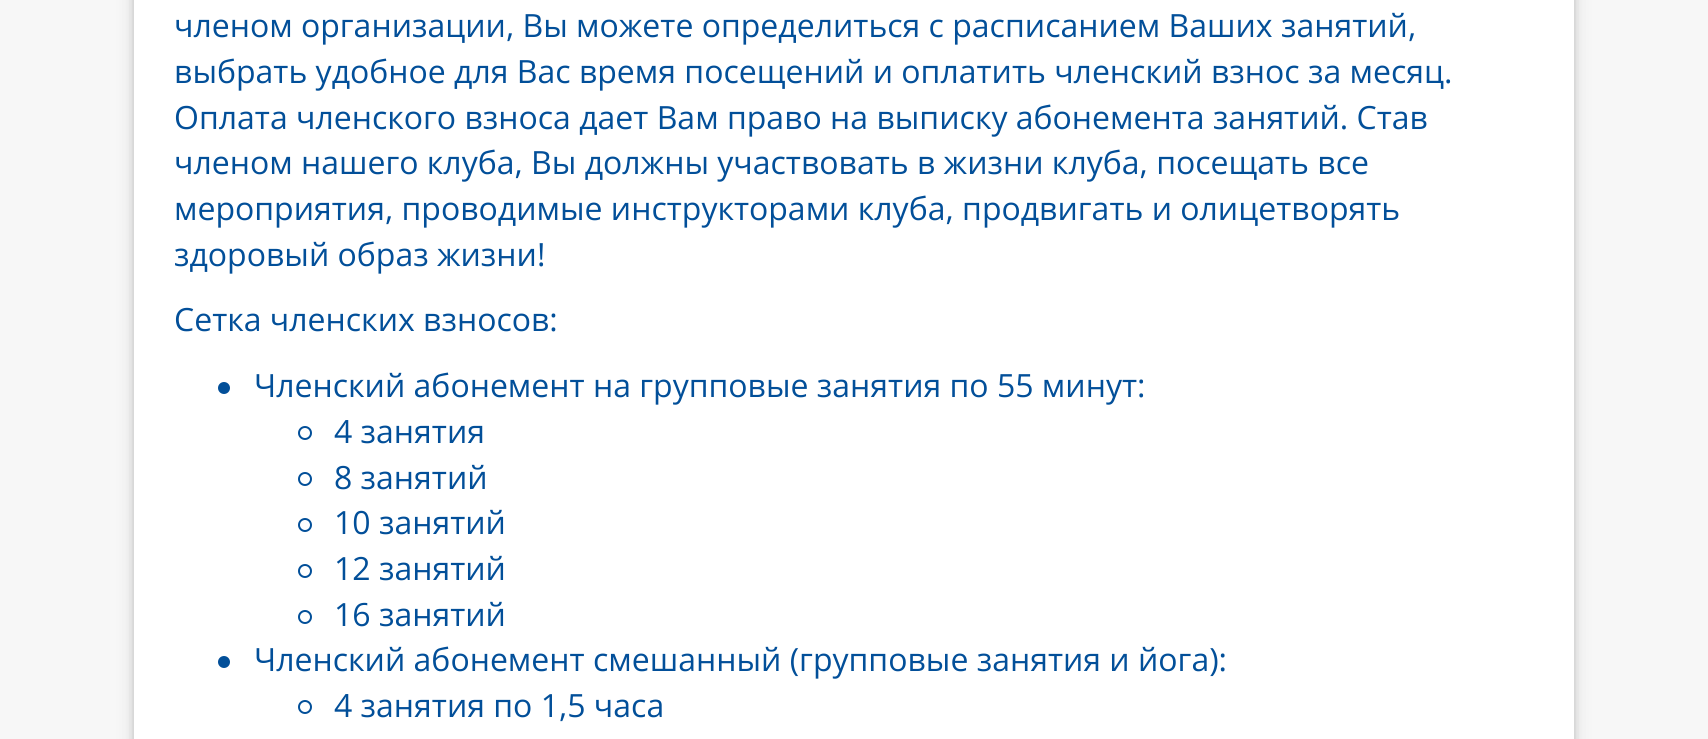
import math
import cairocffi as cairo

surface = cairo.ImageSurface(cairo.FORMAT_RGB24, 1708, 739)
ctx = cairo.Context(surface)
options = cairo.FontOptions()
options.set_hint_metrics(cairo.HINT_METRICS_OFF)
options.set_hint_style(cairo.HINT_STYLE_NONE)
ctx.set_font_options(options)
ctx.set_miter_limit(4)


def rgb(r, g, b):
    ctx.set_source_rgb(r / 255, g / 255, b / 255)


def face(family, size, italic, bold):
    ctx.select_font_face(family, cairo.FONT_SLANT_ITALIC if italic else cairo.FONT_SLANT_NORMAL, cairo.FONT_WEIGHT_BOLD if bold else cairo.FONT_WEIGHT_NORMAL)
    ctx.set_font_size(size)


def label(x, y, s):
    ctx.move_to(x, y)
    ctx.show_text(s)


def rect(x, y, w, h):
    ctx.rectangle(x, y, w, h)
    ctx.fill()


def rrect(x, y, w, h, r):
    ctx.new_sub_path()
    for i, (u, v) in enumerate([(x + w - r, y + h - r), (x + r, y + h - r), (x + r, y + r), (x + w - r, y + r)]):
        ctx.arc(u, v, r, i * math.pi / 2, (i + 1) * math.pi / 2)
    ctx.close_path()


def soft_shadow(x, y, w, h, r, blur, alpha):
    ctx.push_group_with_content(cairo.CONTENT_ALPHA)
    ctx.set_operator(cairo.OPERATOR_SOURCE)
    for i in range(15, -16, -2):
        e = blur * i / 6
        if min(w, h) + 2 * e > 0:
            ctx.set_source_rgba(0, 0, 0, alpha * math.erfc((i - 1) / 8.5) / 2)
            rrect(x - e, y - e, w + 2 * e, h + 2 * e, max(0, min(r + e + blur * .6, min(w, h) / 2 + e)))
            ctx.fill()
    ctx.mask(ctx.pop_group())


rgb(247, 247, 247)
ctx.paint()
rgb(0, 0, 0)
soft_shadow(134, -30, 1440, 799, 0, 10, 0.12)
soft_shadow(134, -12, 1440, 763, 0, 4, 0.16)
rgb(255, 255, 255)
rect(134, 0, 1440, 739)
face('Open Sans', 32, 0, 0)
rgb(2, 79, 153)
label(174, 37, 'членом организации, Вы можете определиться с расписанием Ваших занятий,')
label(174, 83, 'выбрать удобное для Вас время посещений и оплатить членский взнос за месяц.')
label(174, 129, 'Оплата членского взноса дает Вам право на выписку абонемента занятий. Став')
label(174, 174, 'членом нашего клуба, Вы должны участвовать в жизни клуба, посещать все')
label(174, 220, 'мероприятия, проводимые инструкторами клуба, продвигать и олицетворять')
label(174, 266, 'здоровый образ жизни!')
label(174, 331, 'Сетка членских взносов:')
ctx.new_path()
ctx.arc(224, 388, 6, 0, 2 * math.pi)
ctx.fill()
label(254, 397, 'Членский абонемент на групповые занятия по 55 минут:')
ctx.new_path()
ctx.arc(305, 433, 6, 0, 2 * math.pi)
ctx.stroke()
label(334, 443, '4 занятия')
ctx.new_path()
ctx.arc(305, 479, 6, 0, 2 * math.pi)
ctx.stroke()
label(334, 489, '8 занятий')
ctx.new_path()
ctx.arc(305, 525, 6, 0, 2 * math.pi)
ctx.stroke()
label(334, 534, '10 занятий')
ctx.new_path()
ctx.arc(305, 571, 6, 0, 2 * math.pi)
ctx.stroke()
label(334, 580, '12 занятий')
ctx.new_path()
ctx.arc(305, 617, 6, 0, 2 * math.pi)
ctx.stroke()
label(334, 626, '16 занятий')
ctx.new_path()
ctx.arc(224, 662, 6, 0, 2 * math.pi)
ctx.fill()
label(254, 671, 'Членский абонемент смешанный (групповые занятия и йога):')
ctx.new_path()
ctx.arc(305, 707, 6, 0, 2 * math.pi)
ctx.stroke()
label(334, 717, '4 занятия по 1,5 часа')
surface.write_to_png('render.png')
